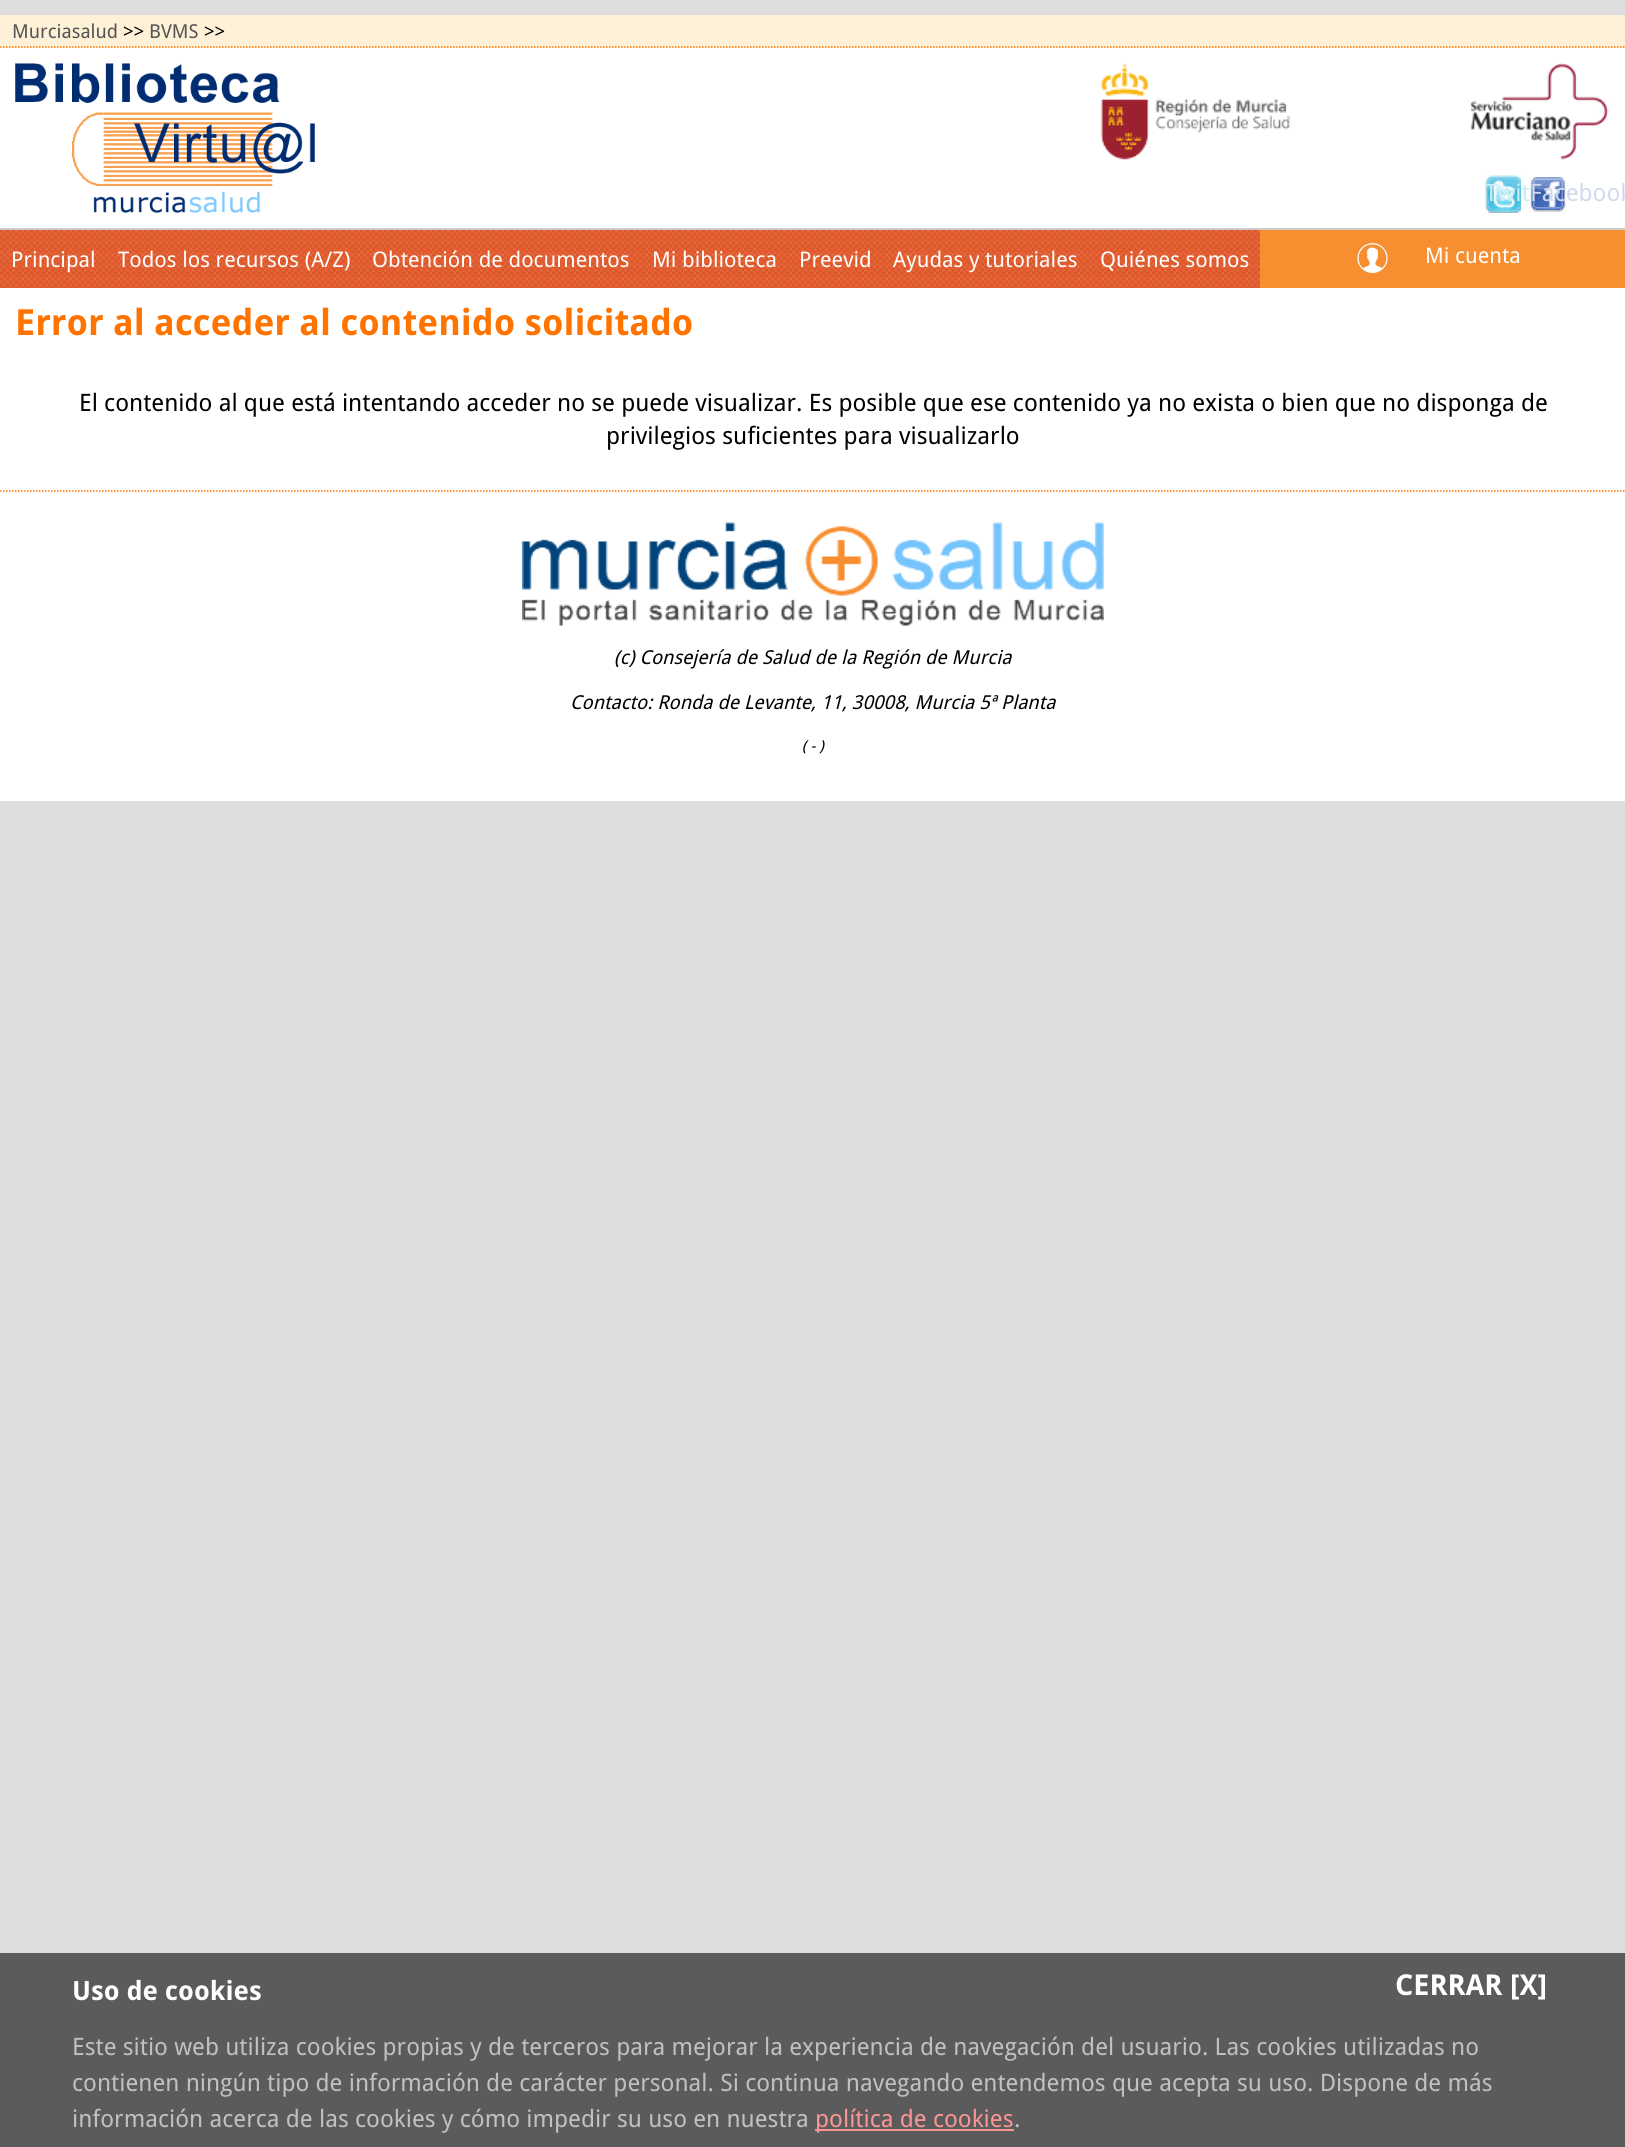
import math
import cairocffi as cairo

surface = cairo.ImageSurface(cairo.FORMAT_RGB24, 1625, 2147)
ctx = cairo.Context(surface)
options = cairo.FontOptions()
options.set_hint_metrics(cairo.HINT_METRICS_OFF)
options.set_hint_style(cairo.HINT_STYLE_NONE)
ctx.set_font_options(options)
ctx.set_miter_limit(4)


def rgb(r, g, b):
    ctx.set_source_rgb(r / 255, g / 255, b / 255)


def face(family, size, italic, bold):
    ctx.select_font_face(family, cairo.FONT_SLANT_ITALIC if italic else cairo.FONT_SLANT_NORMAL, cairo.FONT_WEIGHT_BOLD if bold else cairo.FONT_WEIGHT_NORMAL)
    ctx.set_font_size(size)


def label(x, y, s):
    ctx.move_to(x, y)
    ctx.show_text(s)


def rect(x, y, w, h):
    ctx.rectangle(x, y, w, h)
    ctx.fill()


def image(path, x, y, w, h):
    ctx.save()
    ctx.set_source_surface(cairo.ImageSurface.create_from_png(path), x, y)
    ctx.rectangle(x, y, w, h)
    ctx.fill()
    ctx.restore()


rgb(221, 221, 221)
ctx.paint()
rgb(255, 255, 255)
rect(0, 288, 1625, 513)
rgb(255, 241, 215)
rect(0, 15, 1625, 33)
ctx.new_path()
ctx.move_to(0, 47)
ctx.line_to(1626, 47)
rgb(255, 116, 0)
ctx.set_line_width(1.5)
ctx.set_dash([1.5, 1.5])
ctx.stroke()
face('Droid Sans', 19.2, 0, 0)
rgb(85, 85, 85)
label(12, 38, 'Murciasalud')
rgb(0, 0, 0)
label(123, 38, '>>')
rgb(85, 85, 85)
label(149, 38, 'BVMS')
rgb(0, 0, 0)
label(204, 38, '>>')
rgb(255, 255, 255)
rect(0, 48, 1625, 180)
rgb(204, 204, 204)
rect(0, 228, 1625, 2)
image('image0.png', 15, 63, 300, 150)
image('image1.png', 1100, 63, 191, 97)
image('image2.png', 1470, 63, 139, 97)
image('image3.png', 1485, 175, 36, 38)
face('Droid Sans', 24, 0, 0)
rgb(203, 237, 246)
label(1485, 201, 'Twit')
image('image4.png', 1530, 177, 36, 36)
rgb(209, 218, 236)
label(1530, 201, 'Facebook')
image('image5.png', 0, 230, 1260, 58)
face('Droid Sans', 21.6, 0, 0)
rgb(255, 255, 255)
label(11, 267, 'Principal')
label(118, 267, 'Todos los recursos (A/Z)')
label(372, 267, 'Obtención de documentos')
label(652, 267, 'Mi biblioteca')
label(799, 267, 'Preevid')
label(893, 267, 'Ayudas y tutoriales')
label(1100, 267, 'Quiénes somos')
rgb(247, 142, 47)
rect(1260, 230, 365, 58)
image('image6.png', 1357, 243, 31, 30)
rgb(255, 255, 255)
label(1425, 263, 'Mi cuenta')
face('Droid Sans', 36, 0, 1)
rgb(255, 116, 0)
label(15, 335, 'Error al acceder al contenido solicitado')
face('Droid Sans', 24, 0, 0)
rgb(0, 0, 0)
label(79, 411, 'El contenido al que está intentando acceder no se puede visualizar. Es posible que ese contenido ya no exista o bien que no disponga de')
label(606, 444, 'privilegios suficientes para visualizarlo')
ctx.new_path()
ctx.move_to(0, 491)
ctx.line_to(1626, 491)
rgb(255, 116, 0)
ctx.stroke()
image('image7.png', 522, 522, 582, 104)
face('Droid Sans', 19.2, 1, 0)
rgb(0, 0, 0)
label(614, 664, '(c) Consejería de Salud de la Región de Murcia')
label(570, 709, 'Contacto: Ronda de Levante, 11, 30008, Murcia 5ª Planta')
face('Droid Sans', 15, 1, 0)
label(802, 751, '( - )')
rgb(91, 91, 91)
rect(0, 1953, 1625, 194)
face('Droid Sans', 26.5, 0, 1)
rgb(255, 255, 255)
label(72, 2000, 'Uso de cookies')
face('Droid Sans', 28.75, 0, 1)
label(1395, 1995, 'CERRAR [X]')
face('Droid Sans', 24, 0, 0)
rgb(192, 192, 192)
label(72, 2055, 'Este sitio web utiliza cookies propias y de terceros para mejorar la experiencia de navegación del usuario. Las cookies utilizadas no')
label(72, 2091, 'contienen ningún tipo de información de carácter personal. Si continua navegando entendemos que acepta su uso. Dispone de más')
label(72, 2127, 'información acerca de las cookies y cómo impedir su uso en nuestra')
rgb(250, 149, 149)
rect(815, 2129, 199, 2)
label(815, 2127, 'política de cookies')
rgb(192, 192, 192)
label(1014, 2127, '.')
surface.write_to_png('render.png')
